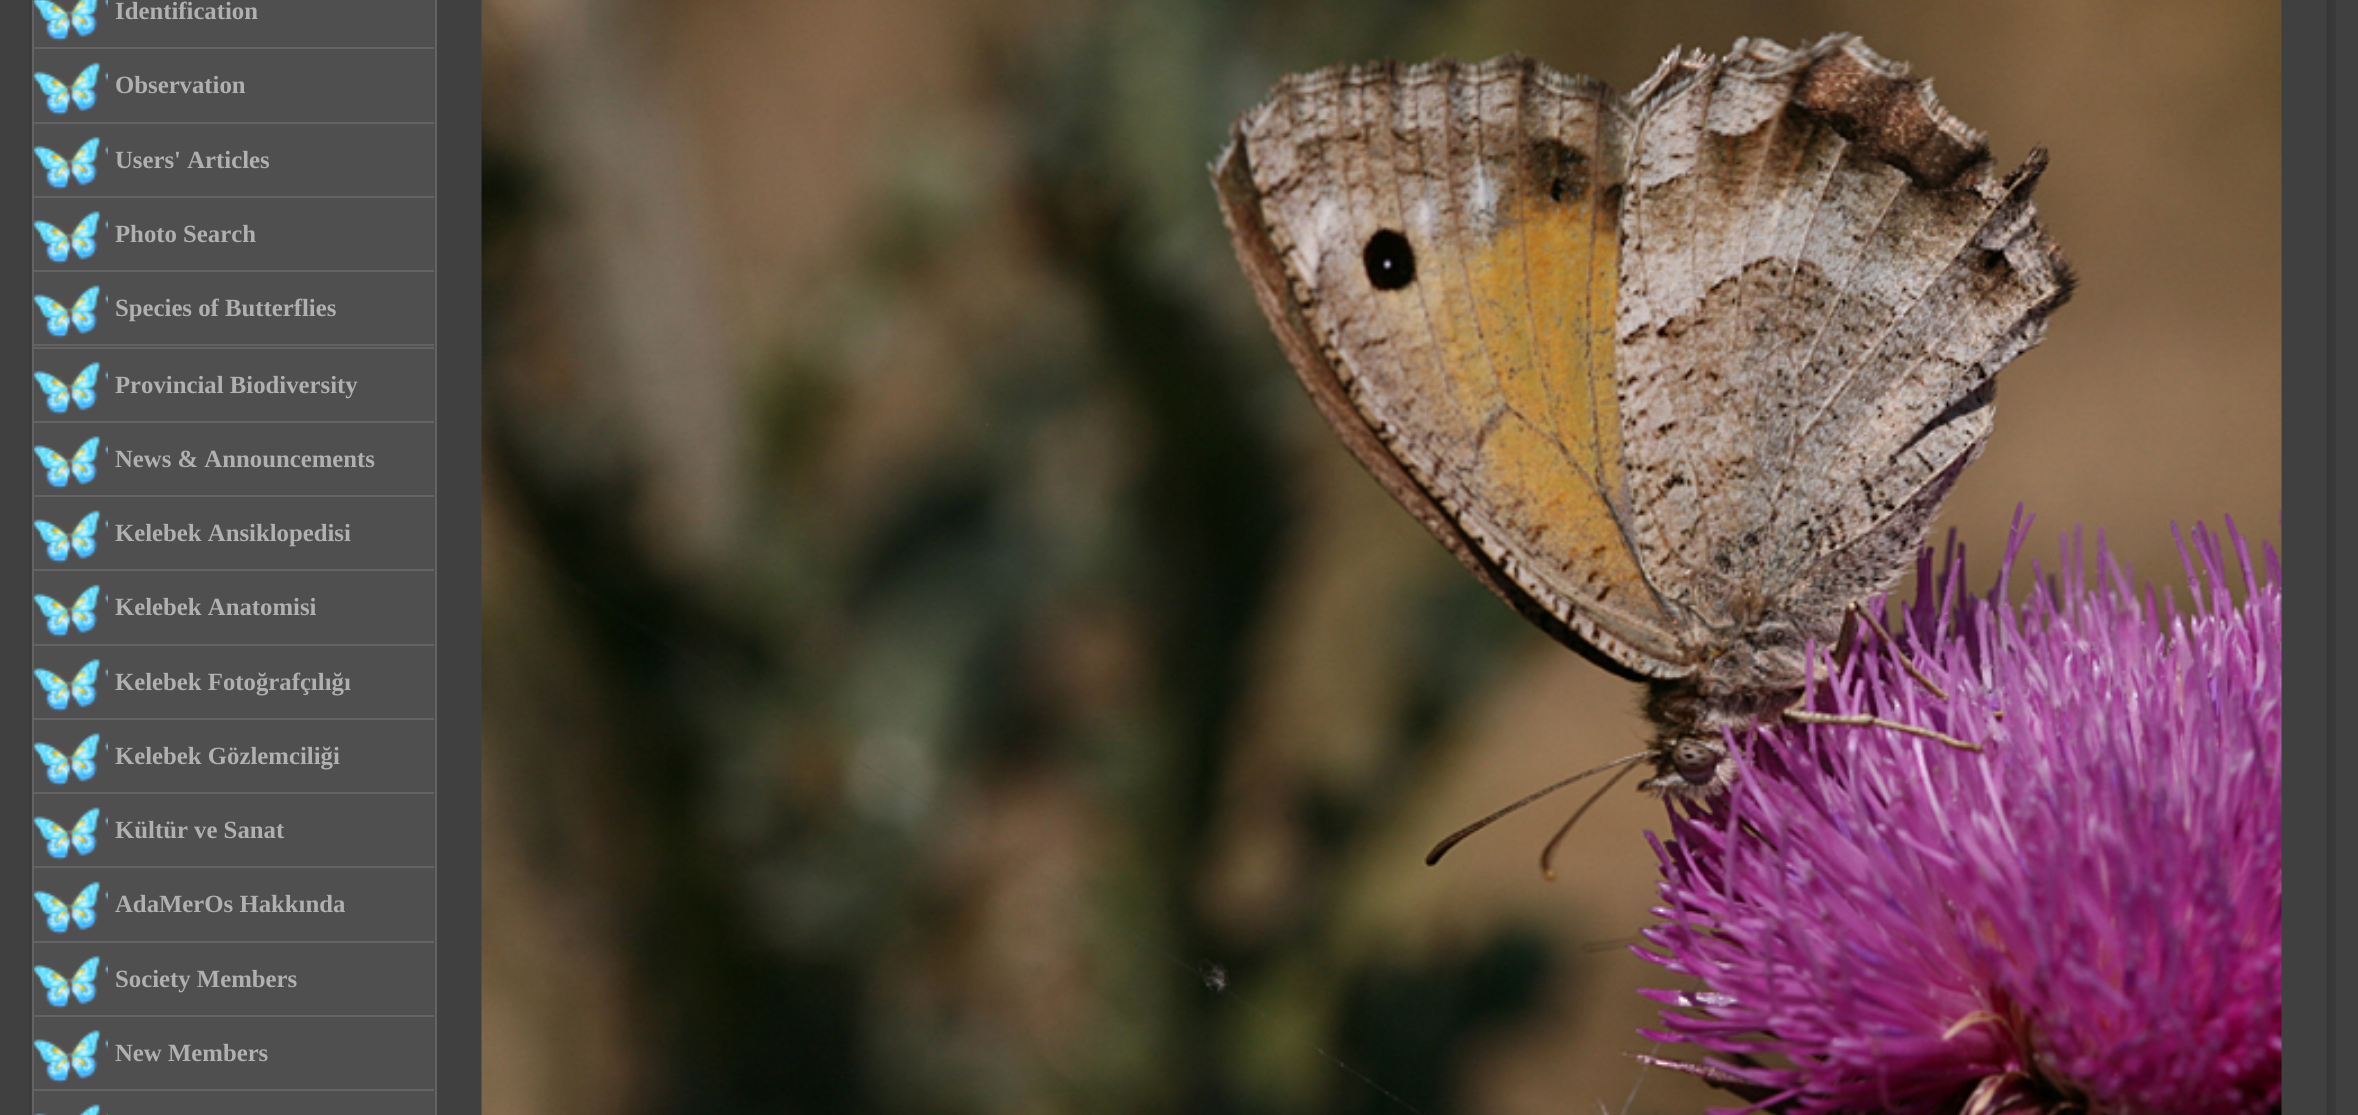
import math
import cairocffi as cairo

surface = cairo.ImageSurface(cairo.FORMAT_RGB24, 2358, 1115)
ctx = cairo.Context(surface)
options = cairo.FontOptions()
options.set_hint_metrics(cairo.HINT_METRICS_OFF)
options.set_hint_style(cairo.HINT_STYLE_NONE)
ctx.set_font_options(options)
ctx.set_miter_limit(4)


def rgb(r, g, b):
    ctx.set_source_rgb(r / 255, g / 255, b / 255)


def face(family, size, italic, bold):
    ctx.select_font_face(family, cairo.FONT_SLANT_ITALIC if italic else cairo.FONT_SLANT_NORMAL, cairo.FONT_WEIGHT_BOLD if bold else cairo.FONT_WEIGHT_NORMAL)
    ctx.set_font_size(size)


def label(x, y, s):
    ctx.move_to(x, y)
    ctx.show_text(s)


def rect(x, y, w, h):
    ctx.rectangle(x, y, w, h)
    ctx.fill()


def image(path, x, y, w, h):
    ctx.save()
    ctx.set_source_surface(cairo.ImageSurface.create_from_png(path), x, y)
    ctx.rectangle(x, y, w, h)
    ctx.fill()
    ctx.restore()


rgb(64, 64, 64)
ctx.paint()
rgb(59, 59, 59)
rect(29, 0, 2, 1115)
rgb(79, 79, 79)
ctx.rectangle(33, -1, 403, 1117)
ctx.fill_preserve()
rgb(99, 99, 99)
ctx.stroke()
image('image0.png', 33, 0, 75, 42)
face('Liberation Serif', 24.75, 0, 1)
rgb(176, 176, 176)
label(115, 19, 'Identification')
rgb(99, 99, 99)
rect(34, 47, 400, 2)
image('image1.png', 33, 62, 75, 54)
rgb(176, 176, 176)
label(115, 93, 'Observation')
rgb(99, 99, 99)
rect(34, 122, 400, 2)
image('image2.png', 33, 136, 75, 54)
rgb(176, 176, 176)
label(115, 168, 'Users\' Articles')
rgb(99, 99, 99)
rect(34, 196, 400, 2)
image('image3.png', 33, 211, 75, 53)
rgb(176, 176, 176)
label(115, 242, 'Photo Search')
rgb(99, 99, 99)
rect(34, 270, 400, 2)
image('image4.png', 33, 285, 75, 54)
rgb(176, 176, 176)
label(115, 316, 'Species of Butterflies')
rgb(99, 99, 99)
rect(34, 344, 400, 2)
rect(34, 347, 400, 2)
image('image5.png', 33, 361, 75, 54)
rgb(176, 176, 176)
label(115, 393, 'Provincial Biodiversity')
rgb(99, 99, 99)
rect(34, 421, 400, 2)
image('image6.png', 33, 436, 75, 53)
rgb(176, 176, 176)
label(115, 467, 'News & Announcements')
rgb(99, 99, 99)
rect(34, 495, 400, 2)
image('image7.png', 33, 510, 75, 54)
rgb(176, 176, 176)
label(115, 541, 'Kelebek Ansiklopedisi')
rgb(99, 99, 99)
rect(34, 569, 400, 2)
image('image8.png', 33, 584, 75, 54)
rgb(176, 176, 176)
label(115, 615, 'Kelebek Anatomisi')
rgb(99, 99, 99)
rect(34, 644, 400, 2)
image('image9.png', 33, 658, 75, 54)
rgb(176, 176, 176)
label(115, 690, 'Kelebek Fotoğrafçılığı')
rgb(99, 99, 99)
rect(34, 718, 400, 2)
image('image10.png', 33, 733, 75, 53)
rgb(176, 176, 176)
label(115, 764, 'Kelebek Gözlemciliği')
rgb(99, 99, 99)
rect(34, 792, 400, 2)
image('image11.png', 33, 807, 75, 54)
rgb(176, 176, 176)
label(115, 838, 'Kültür ve Sanat')
rgb(99, 99, 99)
rect(34, 866, 400, 2)
image('image12.png', 33, 881, 75, 54)
rgb(176, 176, 176)
label(115, 912, 'AdaMerOs Hakkında')
rgb(99, 99, 99)
rect(34, 941, 400, 2)
image('image13.png', 33, 955, 75, 54)
rgb(176, 176, 176)
label(115, 987, 'Society Members')
rgb(99, 99, 99)
rect(34, 1015, 400, 2)
image('image14.png', 33, 1030, 75, 53)
rgb(176, 176, 176)
label(115, 1061, 'New Members')
rgb(99, 99, 99)
rect(34, 1089, 400, 2)
image('image15.png', 34, 1104, 74, 11)
image('image16.png', 481, 0, 1801, 1115)
image('image17.png', 2326, 0, 10, 1115)
surface.write_to_png('render.png')
